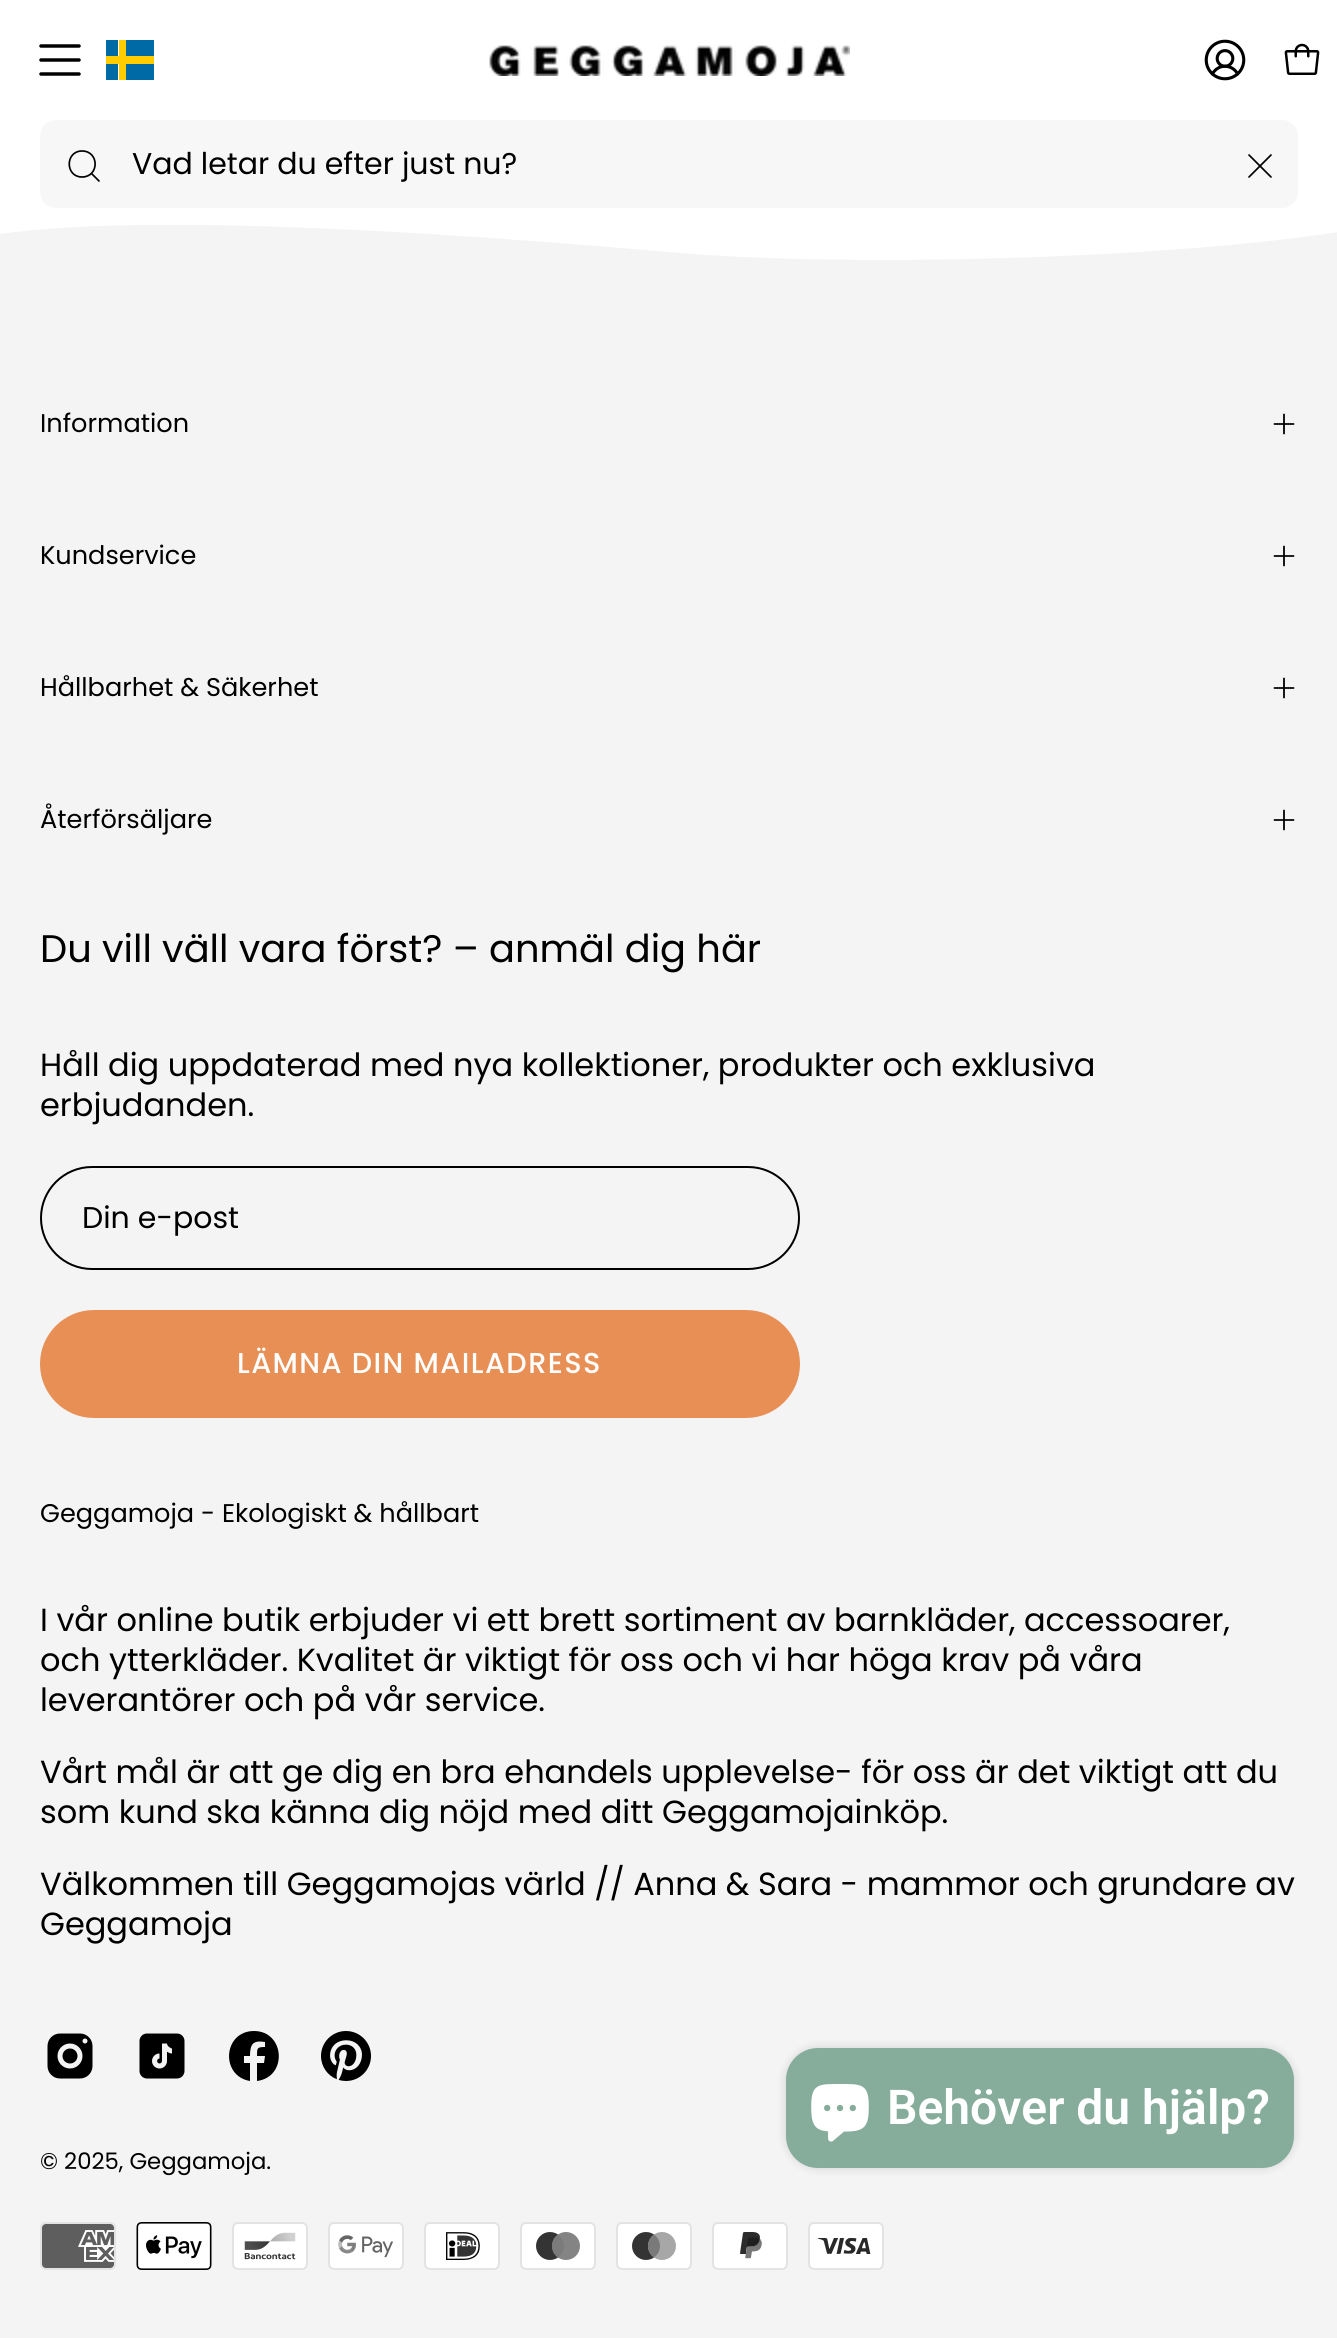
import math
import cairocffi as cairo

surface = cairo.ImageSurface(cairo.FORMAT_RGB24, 1337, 2338)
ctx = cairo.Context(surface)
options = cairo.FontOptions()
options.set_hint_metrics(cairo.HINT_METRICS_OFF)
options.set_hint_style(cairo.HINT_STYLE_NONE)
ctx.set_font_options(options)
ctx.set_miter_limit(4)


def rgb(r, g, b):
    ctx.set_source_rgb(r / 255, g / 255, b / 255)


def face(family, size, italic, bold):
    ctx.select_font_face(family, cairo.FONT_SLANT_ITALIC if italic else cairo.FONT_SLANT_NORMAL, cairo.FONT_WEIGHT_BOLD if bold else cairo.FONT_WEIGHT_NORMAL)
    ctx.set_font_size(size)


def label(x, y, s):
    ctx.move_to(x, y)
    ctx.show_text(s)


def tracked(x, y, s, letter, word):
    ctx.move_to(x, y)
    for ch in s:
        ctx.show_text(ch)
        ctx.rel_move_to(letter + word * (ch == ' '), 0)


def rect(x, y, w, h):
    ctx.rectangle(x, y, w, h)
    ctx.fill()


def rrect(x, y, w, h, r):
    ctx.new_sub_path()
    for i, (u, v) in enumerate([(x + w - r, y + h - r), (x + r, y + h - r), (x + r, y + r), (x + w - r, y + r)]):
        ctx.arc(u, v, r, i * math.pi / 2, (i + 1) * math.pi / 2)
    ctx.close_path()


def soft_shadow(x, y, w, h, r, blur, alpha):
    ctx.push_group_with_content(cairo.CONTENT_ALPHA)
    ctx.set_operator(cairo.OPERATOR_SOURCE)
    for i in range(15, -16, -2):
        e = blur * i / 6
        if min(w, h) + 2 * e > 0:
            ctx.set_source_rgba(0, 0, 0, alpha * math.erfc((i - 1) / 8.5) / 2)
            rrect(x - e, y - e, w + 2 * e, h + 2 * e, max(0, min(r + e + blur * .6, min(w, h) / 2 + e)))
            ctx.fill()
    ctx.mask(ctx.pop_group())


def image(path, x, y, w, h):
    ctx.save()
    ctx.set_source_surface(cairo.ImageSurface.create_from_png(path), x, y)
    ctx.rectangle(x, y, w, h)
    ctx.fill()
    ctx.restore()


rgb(255, 255, 255)
ctx.paint()
ctx.new_path()
ctx.move_to(41, 60)
ctx.line_to(79, 60)
ctx.move_to(41, 46)
ctx.line_to(79, 46)
ctx.move_to(41, 74)
ctx.line_to(79, 74)
rgb(0, 0, 0)
ctx.set_line_width(3.5)
ctx.set_line_cap(cairo.LINE_CAP_ROUND)
ctx.set_line_join(cairo.LINE_JOIN_ROUND)
ctx.stroke()
ctx.save()
ctx.rectangle(106, 40, 48, 40)
ctx.clip()
rgb(0, 106, 167)
ctx.set_fill_rule(cairo.FILL_RULE_EVEN_ODD)
ctx.new_path()
ctx.move_to(104, 80)
ctx.line_to(118, 80)
ctx.line_to(118, 64)
ctx.line_to(104, 64)
ctx.close_path()
ctx.move_to(104, 40)
ctx.line_to(104, 56)
ctx.line_to(118, 56)
ctx.line_to(118, 40)
ctx.close_path()
ctx.fill()
ctx.restore()
rgb(254, 204, 0)
rect(119, 40, 8, 40)
rect(127, 56, 27, 8)
ctx.save()
ctx.rectangle(106, 40, 48, 40)
ctx.clip()
rgb(0, 106, 167)
ctx.set_fill_rule(cairo.FILL_RULE_EVEN_ODD)
ctx.new_path()
ctx.move_to(126, 64)
ctx.line_to(126, 80)
ctx.line_to(157, 80)
ctx.line_to(157, 64)
ctx.close_path()
ctx.move_to(126, 40)
ctx.line_to(126, 56)
ctx.line_to(157, 56)
ctx.line_to(157, 40)
ctx.close_path()
ctx.fill()
ctx.restore()
rect(106, 56, 13, 8)
image('image0.png', 1204, 39, 42, 42)
image('image1.png', 1284, 43, 36, 32)
image('image2.png', 489, 45, 361, 31)
rgb(247, 247, 247)
rrect(40, 120, 1258, 88, 16)
ctx.fill()
ctx.new_path()
ctx.move_to(82, 177)
ctx.curve_to(99.5, 177, 99.5, 151, 82, 151)
ctx.curve_to(65, 151, 65, 177, 82, 177)
ctx.close_path()
ctx.move_to(91.5, 173.5)
ctx.line_to(99, 181)
rgb(0, 0, 0)
ctx.set_line_width(1.7)
ctx.stroke()
face('Poppins', 30, 0, 0)
label(132, 174, 'Vad letar du efter just nu?')
ctx.new_path()
ctx.move_to(1271, 155)
ctx.line_to(1249, 177)
ctx.move_to(1271, 177)
ctx.line_to(1249, 155)
ctx.stroke()
rgb(244, 244, 244)
rect(0, 280, 1337, 2058)
ctx.save()
ctx.rectangle(0, 224, 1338, 56)
ctx.clip()
ctx.new_path()
ctx.move_to(0, 234)
ctx.curve_to(153, 212, 459, 234, 669, 252)
ctx.curve_to(841, 268, 1166, 259, 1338, 232)
ctx.line_to(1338, 281)
ctx.line_to(0, 281)
ctx.fill()
ctx.restore()
face('Poppins', 25.6, 0, 0)
rgb(0, 0, 0)
label(40, 432, 'Information')
ctx.new_path()
ctx.move_to(1274.5, 424)
ctx.line_to(1293.5, 424)
ctx.move_to(1284, 414.5)
ctx.line_to(1284, 433.5)
ctx.set_line_width(1.8)
ctx.stroke()
label(40, 564, 'Kundservice')
ctx.new_path()
ctx.move_to(1274.5, 556)
ctx.line_to(1293.5, 556)
ctx.move_to(1284, 546.5)
ctx.line_to(1284, 565.5)
ctx.stroke()
label(40, 696, 'Hållbarhet & Säkerhet')
ctx.new_path()
ctx.move_to(1274.5, 688)
ctx.line_to(1293.5, 688)
ctx.move_to(1284, 678.5)
ctx.line_to(1284, 697.5)
ctx.stroke()
label(40, 828, 'Återförsäljare')
ctx.new_path()
ctx.move_to(1274.5, 820)
ctx.line_to(1293.5, 820)
ctx.move_to(1284, 810.5)
ctx.line_to(1284, 829.5)
ctx.stroke()
face('Poppins', 38.4, 0, 0)
label(40, 962, 'Du vill väll vara först? – anmäl dig här')
face('Poppins', 32, 0, 0)
label(40, 1076, 'Håll dig uppdaterad med nya kollektioner, produkter och exklusiva')
label(40, 1116, 'erbjudanden.')
rrect(41, 1167, 758, 102, 51)
ctx.set_line_width(2)
ctx.set_line_cap(cairo.LINE_CAP_BUTT)
ctx.set_line_join(cairo.LINE_JOIN_MITER)
ctx.stroke()
face('Poppins', 30, 0, 0)
label(82, 1228, 'Din e-post')
rgb(232, 143, 85)
rrect(40, 1310, 760, 108, 54)
ctx.fill()
face('Poppins Medium', 28.75, 0, 0)
rgb(255, 255, 255)
tracked(237, 1373, 'LÄMNA DIN MAILADRESS', 1.4, 0)
face('Poppins', 25.6, 0, 0)
rgb(0, 0, 0)
label(40, 1522, 'Geggamoja - Ekologiskt & hållbart')
face('Poppins', 32, 0, 0)
label(40, 1631, 'I vår online butik erbjuder vi ett brett sortiment av barnkläder, accessoarer,')
label(40, 1671, 'och ytterkläder. Kvalitet är viktigt för oss och vi har höga krav på våra')
label(40, 1711, 'leverantörer och på vår service.')
label(40, 1783, 'Vårt mål är att ge dig en bra ehandels upplevelse- för oss är det viktigt att du')
label(40, 1823, 'som kund ska känna dig nöjd med ditt Geggamojainköp.')
label(40, 1895, 'Välkommen till Geggamojas värld // Anna & Sara - mammor och grundare av')
label(40, 1935, 'Geggamoja')
image('image3.png', 47, 2033, 46, 46)
image('image4.png', 139, 2033, 46, 46)
ctx.new_path()
ctx.move_to(254, 2031)
ctx.curve_to(223, 2031, 220, 2076, 250, 2081)
ctx.line_to(250, 2063)
ctx.line_to(244, 2063)
ctx.line_to(244, 2056)
ctx.line_to(250, 2056)
ctx.curve_to(250, 2044, 253, 2040, 265, 2042)
ctx.line_to(265, 2047)
ctx.curve_to(257, 2047, 257, 2048, 257, 2056)
ctx.line_to(265, 2056)
ctx.line_to(264, 2063)
ctx.line_to(257, 2063)
ctx.line_to(257, 2081)
ctx.curve_to(288, 2077, 285, 2031, 254, 2031)
ctx.close_path()
ctx.fill()
image('image5.png', 321, 2031, 50, 50)
face('Poppins', 22.75, 0, 0)
label(40, 2169, '© 2025, Geggamoja.')
image('image6.png', 40, 2222, 76, 48)
image('image7.png', 136, 2222, 76, 48)
image('image8.png', 232, 2222, 76, 48)
image('image9.png', 328, 2222, 76, 48)
image('image10.png', 424, 2222, 76, 48)
image('image11.png', 520, 2222, 76, 48)
image('image12.png', 616, 2222, 76, 48)
image('image13.png', 712, 2222, 76, 48)
image('image14.png', 808, 2222, 76, 48)
rgb(0, 0, 0)
soft_shadow(786, 2048, 508, 120, 32, 5, 0.15)
rgb(134, 173, 155)
rrect(786, 2048, 508, 120, 32)
ctx.fill()
image('image15.png', 811, 2084, 58, 58)
face('Roboto SemiBold', 48, 0, 0)
rgb(255, 255, 255)
label(887, 2124, 'Behöver du hjälp?')
surface.write_to_png('render.png')
